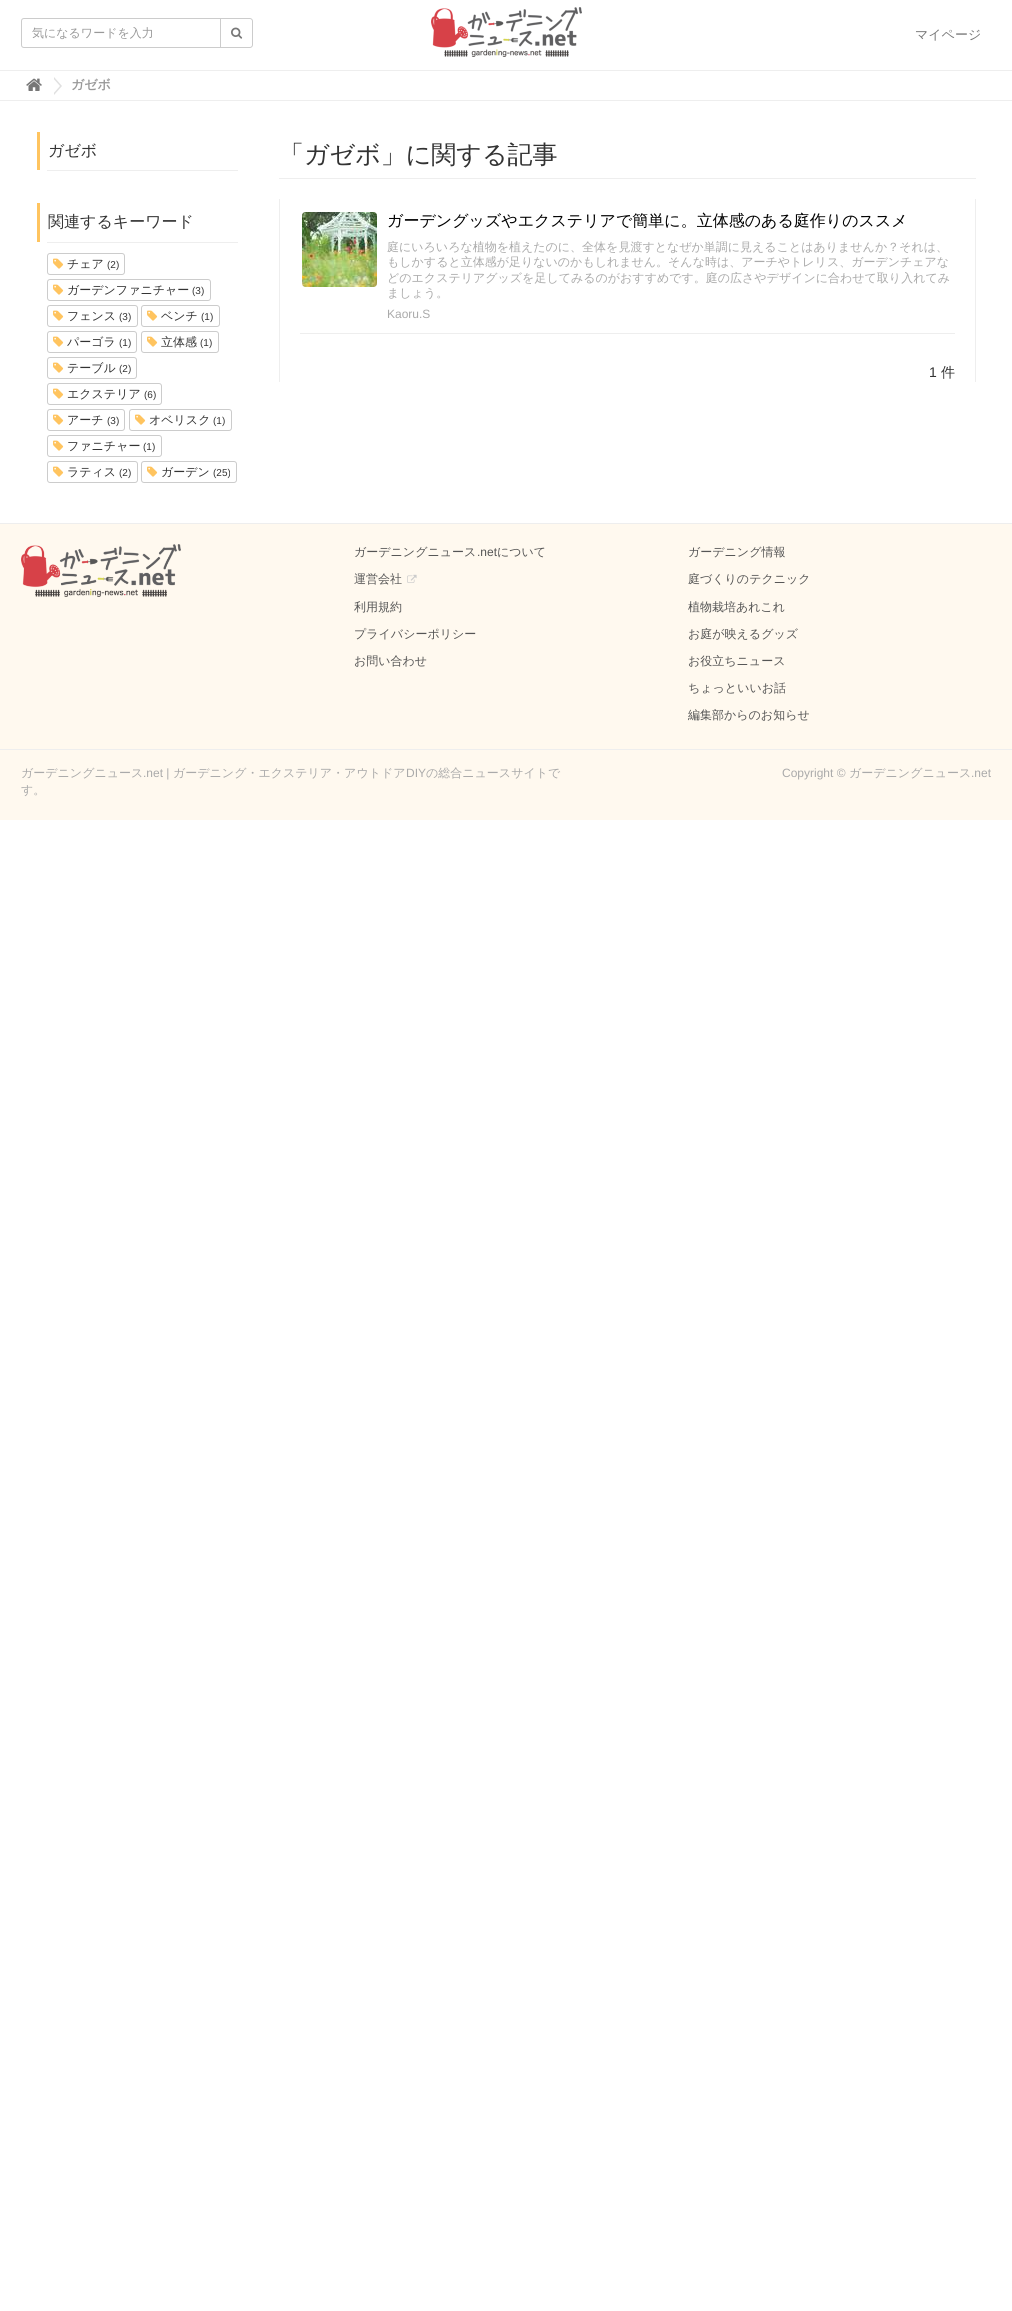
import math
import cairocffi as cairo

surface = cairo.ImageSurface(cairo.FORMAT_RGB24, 1012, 2311)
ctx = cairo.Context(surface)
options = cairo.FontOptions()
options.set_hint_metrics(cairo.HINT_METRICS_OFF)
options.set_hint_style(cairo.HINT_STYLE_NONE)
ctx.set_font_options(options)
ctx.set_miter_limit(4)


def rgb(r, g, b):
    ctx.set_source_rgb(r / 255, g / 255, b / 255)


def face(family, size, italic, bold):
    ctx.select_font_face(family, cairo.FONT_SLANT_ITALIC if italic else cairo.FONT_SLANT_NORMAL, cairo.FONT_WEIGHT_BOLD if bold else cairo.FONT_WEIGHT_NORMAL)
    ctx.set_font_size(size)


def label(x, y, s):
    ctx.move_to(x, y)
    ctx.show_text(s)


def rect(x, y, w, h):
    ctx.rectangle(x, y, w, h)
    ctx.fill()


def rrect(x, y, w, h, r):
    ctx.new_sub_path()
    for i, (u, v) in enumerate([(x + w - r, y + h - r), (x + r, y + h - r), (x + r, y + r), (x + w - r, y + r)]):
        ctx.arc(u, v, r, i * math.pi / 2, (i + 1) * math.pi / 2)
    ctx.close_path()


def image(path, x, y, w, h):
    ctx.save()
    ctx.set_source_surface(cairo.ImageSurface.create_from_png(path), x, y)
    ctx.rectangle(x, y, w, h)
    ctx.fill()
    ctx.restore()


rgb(255, 255, 255)
ctx.paint()
image('image0.png', 431, 7, 151, 50)
ctx.new_path()
ctx.move_to(24, 18.5)
ctx.line_to(220.5, 18.5)
ctx.line_to(220.5, 47.5)
ctx.line_to(24, 47.5)
ctx.curve_to(22.5, 47.5, 21.5, 46.5, 21.5, 45)
ctx.line_to(21.5, 21)
ctx.curve_to(21.5, 19.5, 22.5, 18.5, 24, 18.5)
ctx.close_path()
rgb(204, 204, 204)
ctx.set_line_width(1)
ctx.stroke()
face('WenQuanYi Zen Hei Medium', 12, 0, 0)
rgb(153, 153, 153)
label(32, 37, '気になるワードを入力')
rgb(204, 204, 204)
ctx.set_fill_rule(cairo.FILL_RULE_EVEN_ODD)
ctx.new_path()
ctx.move_to(221, 18)
ctx.line_to(250, 18)
ctx.curve_to(251.5, 18, 253, 19.5, 253, 21)
ctx.line_to(253, 45)
ctx.curve_to(253, 46.5, 251.5, 48, 250, 48)
ctx.line_to(221, 48)
ctx.close_path()
ctx.move_to(221, 19)
ctx.line_to(250, 19)
ctx.curve_to(251, 19, 252, 20, 252, 21)
ctx.line_to(252, 45)
ctx.curve_to(252, 46, 251, 47, 250, 47)
ctx.line_to(221, 47)
ctx.close_path()
ctx.fill()
image('image1.png', 231, 27, 12, 12)
face('WenQuanYi Zen Hei Medium', 13, 0, 0)
rgb(119, 119, 119)
label(915, 39, 'マイページ')
rgb(238, 238, 238)
rect(0, 70, 1012, 1)
rect(0, 100, 1012, 1)
rgb(224, 224, 224)
ctx.set_fill_rule(cairo.FILL_RULE_WINDING)
ctx.new_path()
ctx.move_to(54, 95)
ctx.line_to(54, 77)
ctx.line_to(62, 86)
ctx.close_path()
ctx.fill()
rgb(255, 255, 255)
ctx.new_path()
ctx.move_to(52, 95)
ctx.line_to(52, 77)
ctx.line_to(60, 86)
ctx.close_path()
ctx.fill()
image('image2.png', 26, 78, 16, 13)
face('WenQuanYi Zen Hei', 13, 0, 1)
rgb(153, 153, 153)
label(71, 89, 'ガゼボ')
rgb(255, 196, 95)
rect(37, 132, 3, 38)
face('WenQuanYi Zen Hei Medium', 16, 0, 0)
rgb(51, 51, 51)
label(48, 156, 'ガゼボ')
rgb(238, 238, 238)
rect(47, 170, 191, 1)
rgb(255, 196, 95)
rect(37, 203, 3, 39)
rgb(51, 51, 51)
label(48, 227, '関連するキーワード')
rgb(238, 238, 238)
rect(47, 242, 191, 1)
rrect(47.5, 253.5, 77, 21, 2.5)
rgb(204, 204, 204)
ctx.stroke()
image('image3.png', 53, 258, 11, 11)
face('WenQuanYi Zen Hei Medium', 12, 0, 0)
rgb(51, 51, 51)
label(67, 268, 'チェア')
face('Liberation Sans', 10, 0, 0)
label(107, 268, '(2)')
rrect(47.5, 279.5, 163, 21, 2.5)
rgb(204, 204, 204)
ctx.stroke()
image('image3.png', 53, 284, 11, 11)
face('WenQuanYi Zen Hei Medium', 12, 0, 0)
rgb(51, 51, 51)
label(67, 294, 'ガーデンファニチャー')
face('Liberation Sans', 10, 0, 0)
label(192, 294, '(3)')
rrect(47.5, 305.5, 90, 21, 2.5)
rgb(204, 204, 204)
ctx.stroke()
image('image3.png', 53, 310, 11, 11)
face('WenQuanYi Zen Hei Medium', 12, 0, 0)
rgb(51, 51, 51)
label(67, 320, 'フェンス')
face('Liberation Sans', 10, 0, 0)
label(119, 320, '(3)')
rrect(141.5, 305.5, 78, 21, 2.5)
rgb(204, 204, 204)
ctx.stroke()
image('image3.png', 147, 310, 11, 11)
face('WenQuanYi Zen Hei Medium', 12, 0, 0)
rgb(51, 51, 51)
label(161, 320, 'ベンチ')
face('Liberation Sans', 10, 0, 0)
label(201, 320, '(1)')
rrect(47.5, 331.5, 89, 21, 2.5)
rgb(204, 204, 204)
ctx.stroke()
image('image3.png', 53, 336, 11, 11)
face('WenQuanYi Zen Hei Medium', 12, 0, 0)
rgb(51, 51, 51)
label(67, 346, 'パーゴラ')
face('Liberation Sans', 10, 0, 0)
label(119, 346, '(1)')
rrect(141.5, 331.5, 77, 21, 2.5)
rgb(204, 204, 204)
ctx.stroke()
image('image3.png', 147, 336, 11, 11)
face('WenQuanYi Zen Hei Medium', 12, 0, 0)
rgb(51, 51, 51)
label(161, 346, '立体感')
face('Liberation Sans', 10, 0, 0)
label(200, 346, '(1)')
rrect(47.5, 357.5, 89, 21, 2.5)
rgb(204, 204, 204)
ctx.stroke()
image('image3.png', 53, 362, 11, 11)
face('WenQuanYi Zen Hei Medium', 12, 0, 0)
rgb(51, 51, 51)
label(67, 372, 'テーブル')
face('Liberation Sans', 10, 0, 0)
label(119, 372, '(2)')
rrect(47.5, 383.5, 114, 21, 2.5)
rgb(204, 204, 204)
ctx.stroke()
image('image3.png', 53, 388, 11, 11)
face('WenQuanYi Zen Hei Medium', 12, 0, 0)
rgb(51, 51, 51)
label(67, 398, 'エクステリア')
face('Liberation Sans', 10, 0, 0)
label(144, 398, '(6)')
rrect(47.5, 409.5, 77, 21, 2.5)
rgb(204, 204, 204)
ctx.stroke()
image('image3.png', 53, 414, 11, 11)
face('WenQuanYi Zen Hei Medium', 12, 0, 0)
rgb(51, 51, 51)
label(67, 424, 'アーチ')
face('Liberation Sans', 10, 0, 0)
label(107, 424, '(3)')
rrect(129.5, 409.5, 102, 21, 2.5)
rgb(204, 204, 204)
ctx.stroke()
image('image3.png', 135, 414, 11, 11)
face('WenQuanYi Zen Hei Medium', 12, 0, 0)
rgb(51, 51, 51)
label(149, 424, 'オベリスク')
face('Liberation Sans', 10, 0, 0)
label(213, 424, '(1)')
rrect(47.5, 435.5, 114, 21, 2.5)
rgb(204, 204, 204)
ctx.stroke()
image('image3.png', 53, 440, 11, 11)
face('WenQuanYi Zen Hei Medium', 12, 0, 0)
rgb(51, 51, 51)
label(67, 450, 'ファニチャー')
face('Liberation Sans', 10, 0, 0)
label(143, 450, '(1)')
rrect(47.5, 461.5, 90, 21, 2.5)
rgb(204, 204, 204)
ctx.stroke()
image('image3.png', 53, 466, 11, 11)
face('WenQuanYi Zen Hei Medium', 12, 0, 0)
rgb(51, 51, 51)
label(67, 476, 'ラティス')
face('Liberation Sans', 10, 0, 0)
label(119, 476, '(2)')
rrect(141.5, 461.5, 95, 21, 2.5)
rgb(204, 204, 204)
ctx.stroke()
image('image3.png', 147, 466, 11, 11)
face('WenQuanYi Zen Hei Medium', 12, 0, 0)
rgb(51, 51, 51)
label(161, 476, 'ガーデン')
face('Liberation Sans', 10, 0, 0)
label(213, 476, '(25)')
rgb(238, 238, 238)
rect(279, 178, 697, 1)
face('WenQuanYi Zen Hei Medium', 25, 0, 0)
rgb(51, 51, 51)
label(279, 163, '「ガゼボ」に関する記事')
rgb(238, 238, 238)
rect(975, 199, 1, 183)
rect(279, 199, 1, 183)
rect(300, 333, 655, 1)
image('image4.png', 302, 212, 75, 75)
face('WenQuanYi Zen Hei Medium', 16, 0, 0)
rgb(0, 0, 0)
label(387, 226, 'ガーデングッズやエクステリアで簡単に。立体感のある庭作りのススメ')
face('WenQuanYi Zen Hei Medium', 12, 0, 0)
rgb(170, 170, 170)
label(387, 251, '庭にいろいろな植物を植えたのに、全体を見渡すとなぜか単調に見えることはありませんか？それは、')
label(387, 266, 'もしかすると立体感が足りないのかもしれません。そんな時は、アーチやトレリス、ガーデンチェアな')
label(387, 282, 'どのエクステリアグッズを足してみるのがおすすめです。庭の広さやデザインに合わせて取り入れてみ')
label(387, 297, 'ましょう。')
face('Liberation Sans', 12, 0, 0)
label(387, 318, 'Kaoru.S')
face('Liberation Sans', 14, 0, 0)
rgb(51, 51, 51)
label(929, 377, '1')
face('WenQuanYi Zen Hei Medium', 14, 0, 0)
label(941, 377, '件')
rgb(255, 249, 239)
rect(0, 524, 1012, 296)
rgb(238, 238, 238)
rect(0, 523, 1012, 1)
image('image5.png', 21, 544, 160, 53)
face('WenQuanYi Zen Hei Medium', 12, 0, 0)
rgb(85, 85, 85)
label(354, 556, 'ガーデニングニュース')
face('Liberation Sans', 12, 0, 0)
label(477, 556, '.net')
face('WenQuanYi Zen Hei Medium', 12, 0, 0)
label(497, 556, 'について')
label(354, 583, '運営会社')
image('image6.png', 407, 574, 10, 9)
label(354, 611, '利用規約')
label(354, 638, 'プライバシーポリシー')
label(354, 665, 'お問い合わせ')
label(688, 556, 'ガーデニング情報')
label(688, 583, '庭づくりのテクニック')
label(688, 611, '植物栽培あれこれ')
label(688, 638, 'お庭が映えるグッズ')
label(688, 665, 'お役立ちニュース')
label(688, 692, 'ちょっといいお話')
label(688, 719, '編集部からのお知らせ')
rgb(238, 238, 238)
rect(0, 749, 1012, 1)
rgb(170, 170, 170)
label(21, 777, 'ガーデニングニュース')
face('Liberation Sans', 12, 0, 0)
label(143, 777, '.net |')
face('WenQuanYi Zen Hei Medium', 12, 0, 0)
label(173, 777, 'ガーデニング・エクステリア・アウトドア')
face('Liberation Sans', 12, 0, 0)
label(406, 777, 'DIY')
face('WenQuanYi Zen Hei Medium', 12, 0, 0)
label(426, 777, 'の総合ニュースサイトで')
label(21, 794, 'す。')
face('Liberation Sans', 12, 0, 0)
label(782, 777, 'Copyright ©')
face('WenQuanYi Zen Hei Medium', 12, 0, 0)
label(849, 777, 'ガーデニングニュース')
face('Liberation Sans', 12, 0, 0)
label(971, 777, '.net')
surface.write_to_png('render.png')
